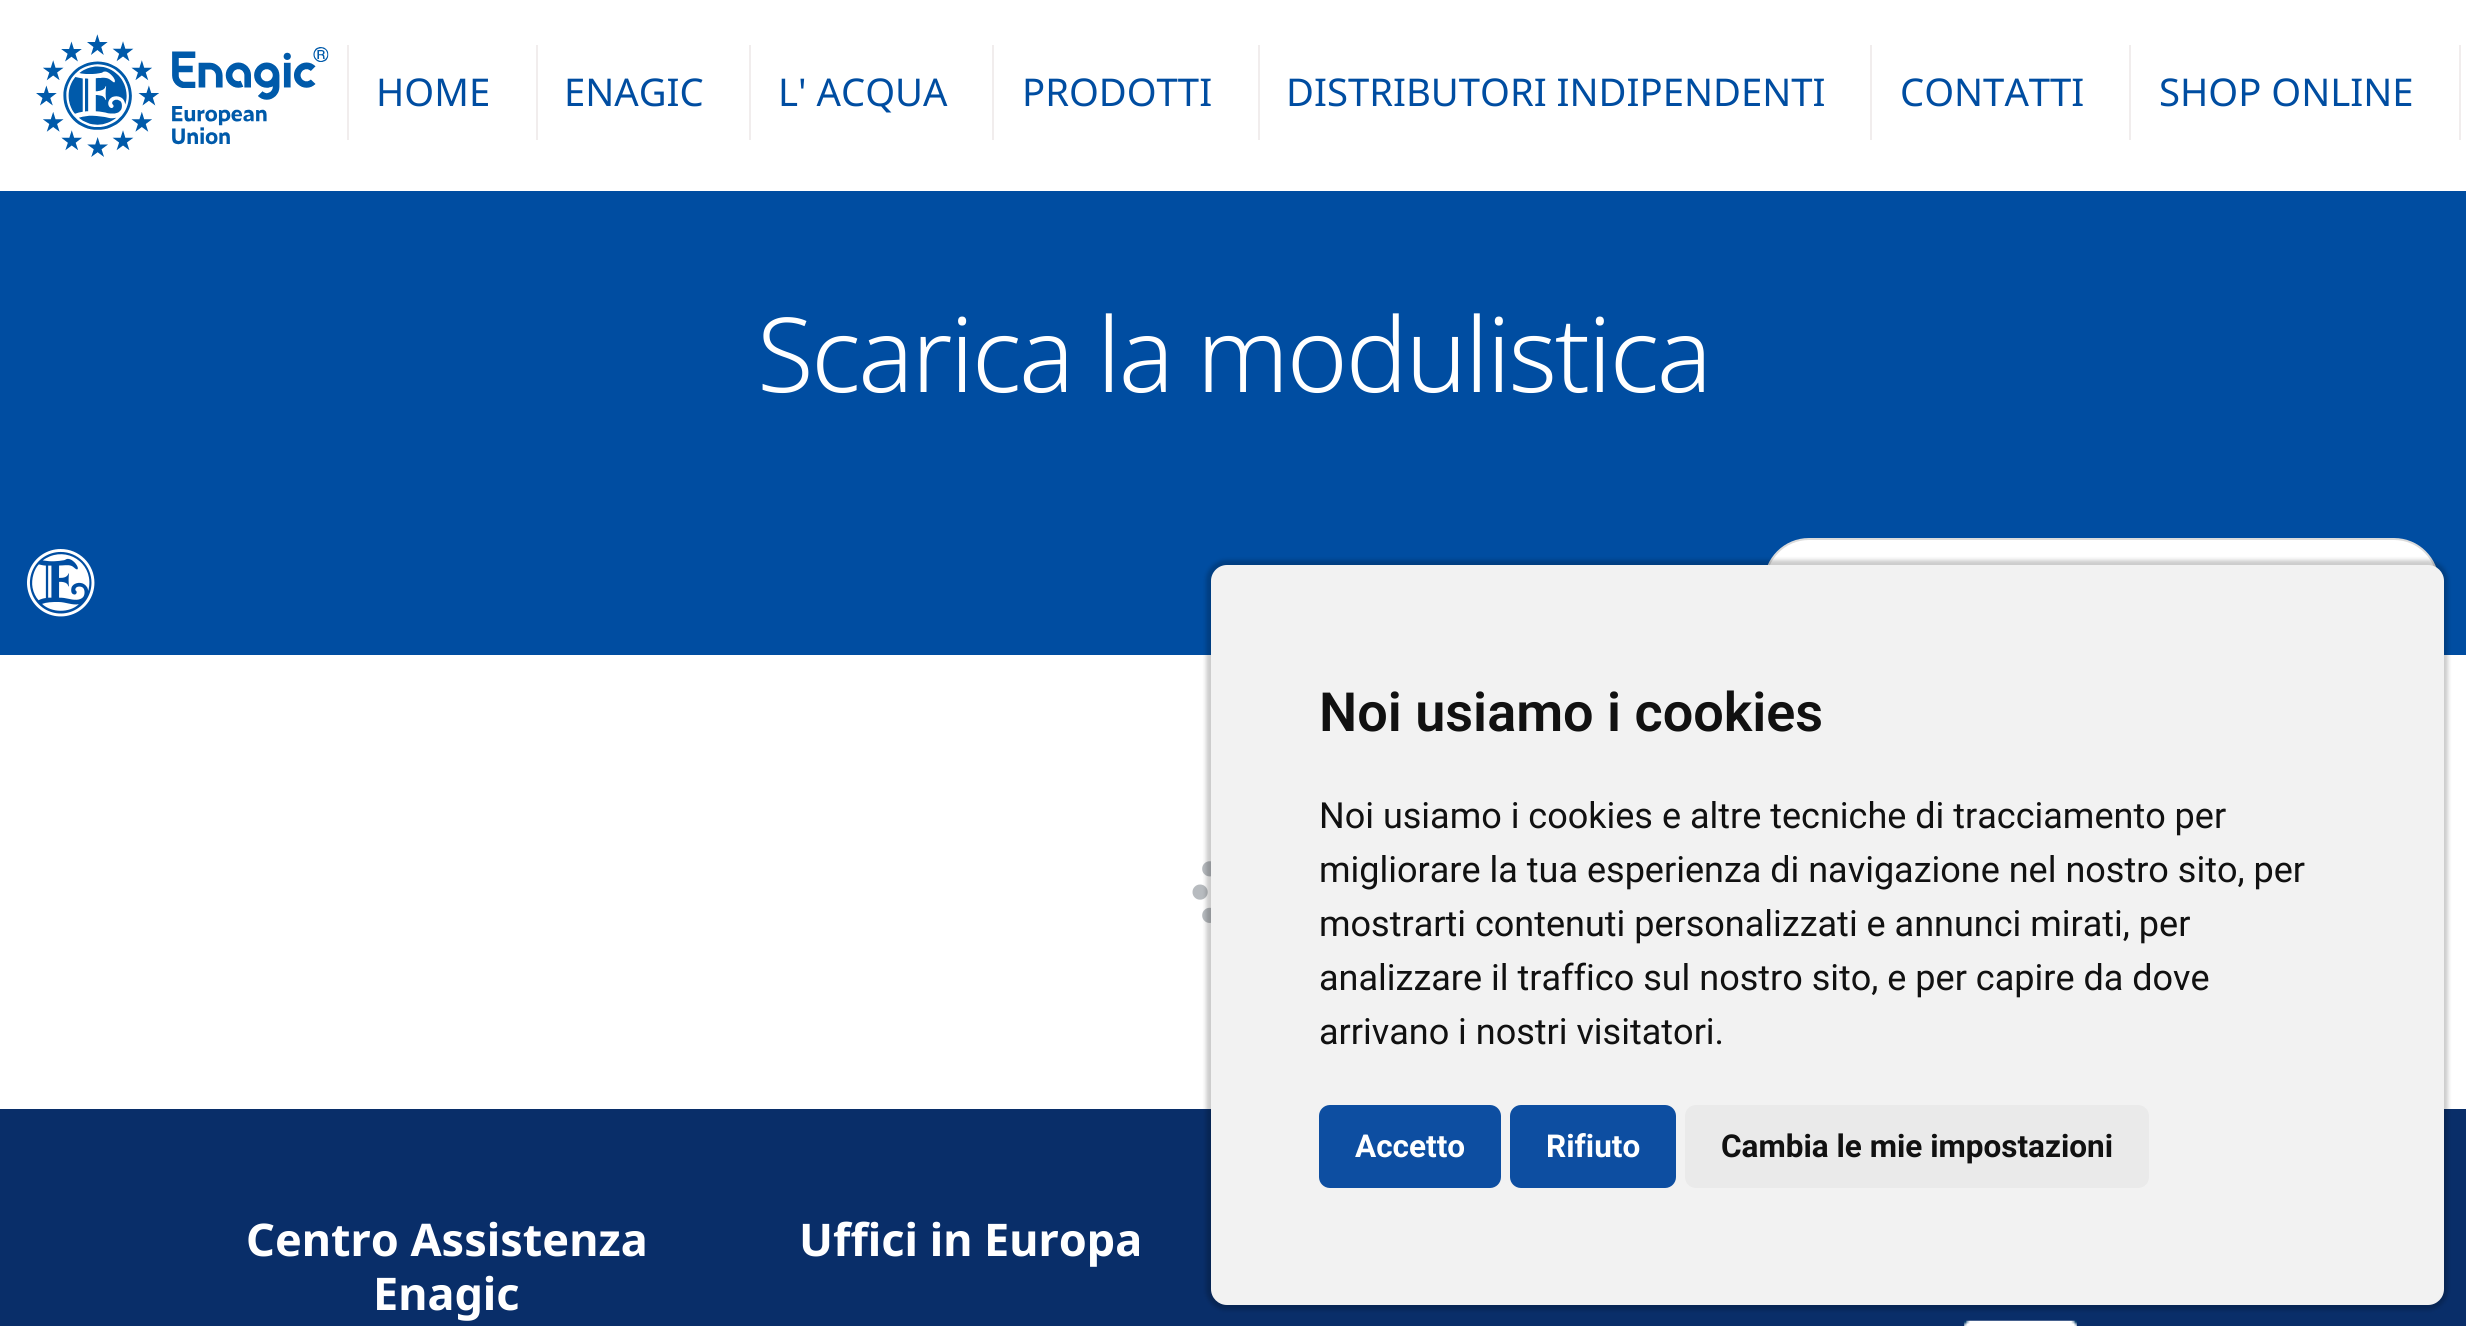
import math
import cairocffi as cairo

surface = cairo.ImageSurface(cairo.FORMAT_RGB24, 2466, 1326)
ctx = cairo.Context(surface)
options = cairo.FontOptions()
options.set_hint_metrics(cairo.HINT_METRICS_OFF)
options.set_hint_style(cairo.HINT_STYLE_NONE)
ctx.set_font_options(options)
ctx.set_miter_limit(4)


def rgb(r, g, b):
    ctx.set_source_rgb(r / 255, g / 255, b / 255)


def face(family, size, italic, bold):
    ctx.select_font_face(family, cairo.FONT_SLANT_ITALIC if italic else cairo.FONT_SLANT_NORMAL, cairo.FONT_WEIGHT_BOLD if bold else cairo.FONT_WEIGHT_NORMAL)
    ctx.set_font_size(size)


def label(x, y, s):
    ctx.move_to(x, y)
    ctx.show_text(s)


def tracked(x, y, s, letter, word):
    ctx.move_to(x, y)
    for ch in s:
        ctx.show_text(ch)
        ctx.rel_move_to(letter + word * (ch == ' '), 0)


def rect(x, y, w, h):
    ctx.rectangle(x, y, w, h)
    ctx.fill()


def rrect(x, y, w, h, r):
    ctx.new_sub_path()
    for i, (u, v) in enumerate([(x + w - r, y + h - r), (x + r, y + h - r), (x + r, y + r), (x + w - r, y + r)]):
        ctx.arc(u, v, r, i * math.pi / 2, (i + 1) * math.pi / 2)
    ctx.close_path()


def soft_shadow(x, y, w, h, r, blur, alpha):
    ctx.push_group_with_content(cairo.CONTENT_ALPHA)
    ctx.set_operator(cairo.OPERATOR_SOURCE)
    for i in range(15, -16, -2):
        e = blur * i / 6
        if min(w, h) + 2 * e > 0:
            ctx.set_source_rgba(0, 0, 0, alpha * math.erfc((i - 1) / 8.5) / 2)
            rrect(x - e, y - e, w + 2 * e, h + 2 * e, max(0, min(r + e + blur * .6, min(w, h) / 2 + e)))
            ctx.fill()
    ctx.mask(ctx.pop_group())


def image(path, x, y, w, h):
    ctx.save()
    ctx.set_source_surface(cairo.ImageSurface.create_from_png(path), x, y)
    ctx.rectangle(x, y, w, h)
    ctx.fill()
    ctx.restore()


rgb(255, 255, 255)
ctx.paint()
image('image0.png', 36, 34, 293, 123)
rgb(241, 237, 237)
rect(347, 45, 2, 95)
face('Noto Sans', 38.25, 0, 0)
rgb(0, 77, 161)
label(376, 106, 'HOME')
rgb(241, 237, 237)
rect(536, 45, 2, 95)
rgb(0, 77, 161)
label(564, 106, 'ENAGIC')
rgb(241, 237, 237)
rect(749, 45, 2, 95)
rgb(0, 77, 161)
label(778, 106, 'L\' ACQUA')
rgb(241, 237, 237)
rect(992, 45, 2, 95)
rgb(0, 77, 161)
label(1022, 106, 'PRODOTTI')
rgb(241, 237, 237)
rect(1258, 45, 2, 95)
rgb(0, 77, 161)
label(1286, 106, 'DISTRIBUTORI INDIPENDENTI')
rgb(241, 237, 237)
rect(1870, 45, 2, 95)
rgb(0, 77, 161)
label(1900, 106, 'CONTATTI')
rgb(241, 237, 237)
rect(2129, 45, 2, 95)
rgb(0, 77, 161)
label(2159, 106, 'SHOP ONLINE')
rgb(241, 237, 237)
rect(2459, 45, 2, 95)
rgb(0, 77, 161)
rect(0, 191, 2466, 464)
face('Noto Sans Light', 103.5, 0, 0)
rgb(255, 255, 255)
tracked(757, 392, 'Scarica la modulistica', -2.25, 0)
image('image1.png', 27, 549, 68, 68)
rrect(1765, 539, 673, 88, 44)
ctx.fill_preserve()
rgb(219, 219, 219)
ctx.stroke()
image('image2.png', 1192, 861, 19, 62)
rgb(9, 46, 105)
rect(0, 1109, 2466, 217)
face('Noto Sans', 45, 0, 1)
rgb(255, 255, 255)
label(246, 1256, 'Centro Assistenza')
label(373, 1310, 'Enagic')
label(799, 1256, 'Uffici in Europa')
image('image3.png', 1964, 1320, 113, 6)
rgb(0, 0, 0)
soft_shadow(1206, 560, 1242, 750, 20, 2, 0.2)
rgb(242, 242, 242)
rrect(1211, 565, 1233, 740, 16)
ctx.fill()
face('Roboto SemiBold', 54, 0, 0)
rgb(17, 17, 17)
label(1319, 731, 'Noi usiamo i cookies')
face('Roboto', 36, 0, 0)
label(1319, 828, 'Noi usiamo i cookies e altre tecniche di tracciamento per')
label(1319, 882, 'migliorare la tua esperienza di navigazione nel nostro sito, per')
label(1319, 936, 'mostrarti contenuti personalizzati e annunci mirati, per')
label(1319, 990, 'analizzare il traffico sul nostro sito, e per capire da dove')
label(1319, 1044, 'arrivano i nostri visitatori.')
rgb(13, 78, 161)
rrect(1319, 1105, 182, 83, 11)
ctx.fill()
face('Roboto', 31.5, 0, 1)
rgb(255, 255, 255)
label(1355, 1157, 'Accetto')
rgb(13, 78, 161)
rrect(1510, 1105, 166, 83, 11)
ctx.fill()
rgb(255, 255, 255)
label(1546, 1157, 'Rifiuto')
rgb(234, 234, 234)
rrect(1685, 1105, 464, 83, 11)
ctx.fill()
rgb(17, 17, 17)
label(1721, 1157, 'Cambia le mie impostazioni')
surface.write_to_png('render.png')
